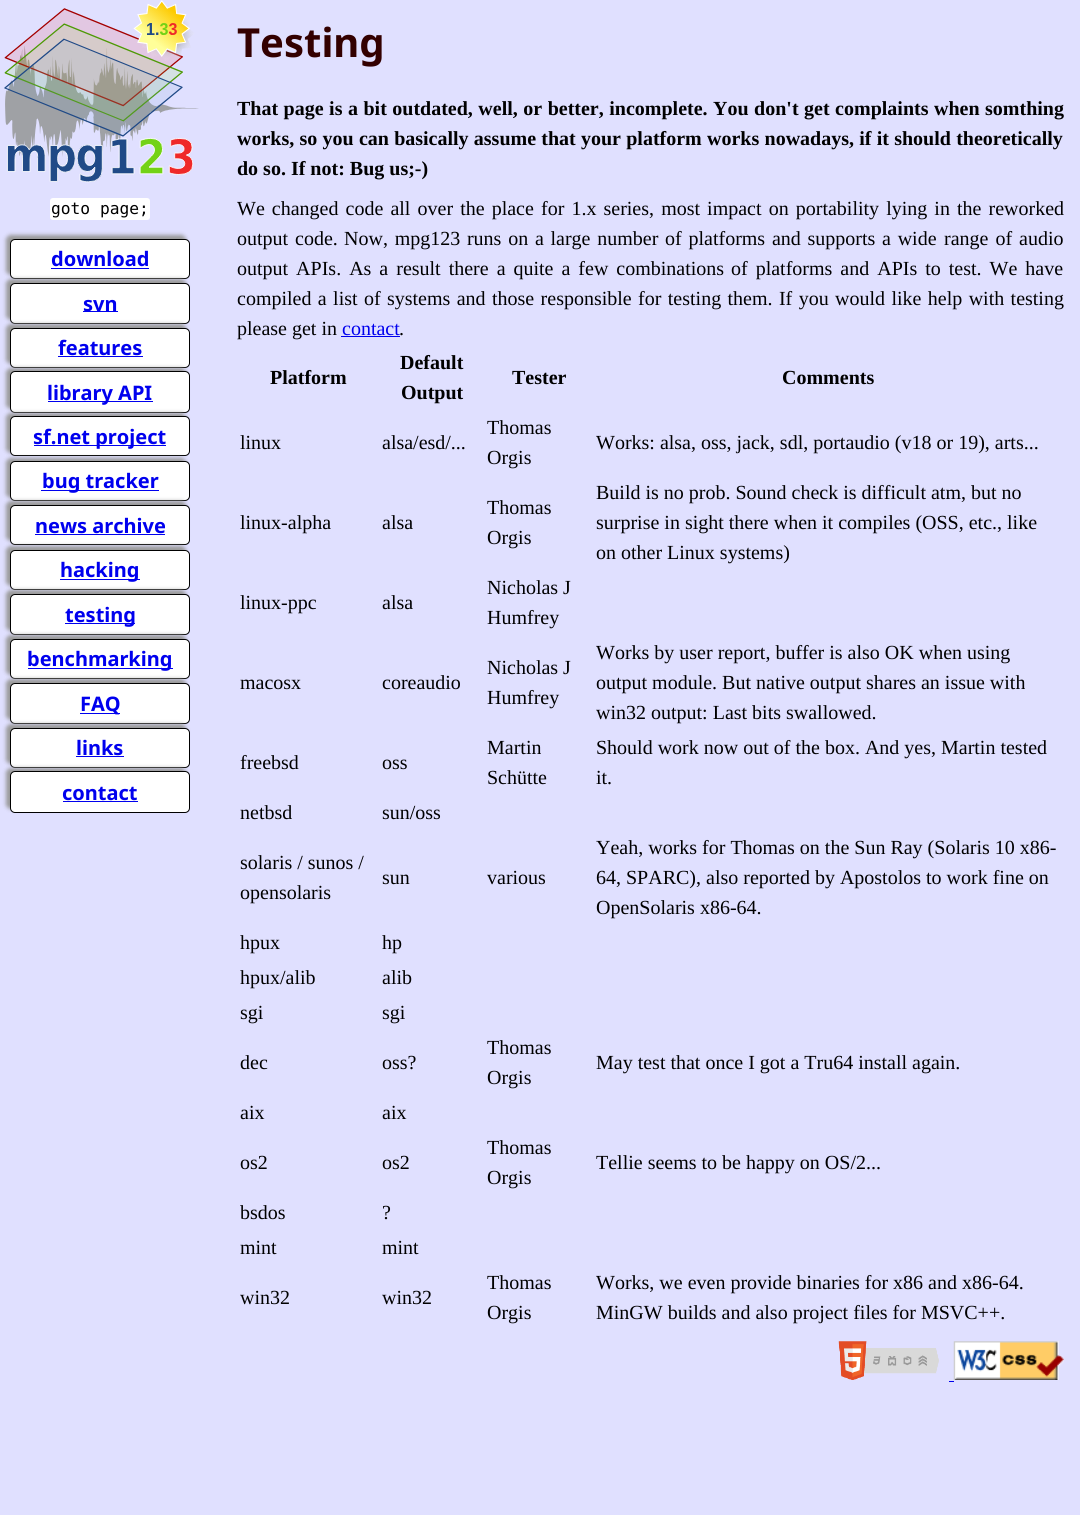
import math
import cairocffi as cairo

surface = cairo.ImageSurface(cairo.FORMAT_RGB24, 1080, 1515)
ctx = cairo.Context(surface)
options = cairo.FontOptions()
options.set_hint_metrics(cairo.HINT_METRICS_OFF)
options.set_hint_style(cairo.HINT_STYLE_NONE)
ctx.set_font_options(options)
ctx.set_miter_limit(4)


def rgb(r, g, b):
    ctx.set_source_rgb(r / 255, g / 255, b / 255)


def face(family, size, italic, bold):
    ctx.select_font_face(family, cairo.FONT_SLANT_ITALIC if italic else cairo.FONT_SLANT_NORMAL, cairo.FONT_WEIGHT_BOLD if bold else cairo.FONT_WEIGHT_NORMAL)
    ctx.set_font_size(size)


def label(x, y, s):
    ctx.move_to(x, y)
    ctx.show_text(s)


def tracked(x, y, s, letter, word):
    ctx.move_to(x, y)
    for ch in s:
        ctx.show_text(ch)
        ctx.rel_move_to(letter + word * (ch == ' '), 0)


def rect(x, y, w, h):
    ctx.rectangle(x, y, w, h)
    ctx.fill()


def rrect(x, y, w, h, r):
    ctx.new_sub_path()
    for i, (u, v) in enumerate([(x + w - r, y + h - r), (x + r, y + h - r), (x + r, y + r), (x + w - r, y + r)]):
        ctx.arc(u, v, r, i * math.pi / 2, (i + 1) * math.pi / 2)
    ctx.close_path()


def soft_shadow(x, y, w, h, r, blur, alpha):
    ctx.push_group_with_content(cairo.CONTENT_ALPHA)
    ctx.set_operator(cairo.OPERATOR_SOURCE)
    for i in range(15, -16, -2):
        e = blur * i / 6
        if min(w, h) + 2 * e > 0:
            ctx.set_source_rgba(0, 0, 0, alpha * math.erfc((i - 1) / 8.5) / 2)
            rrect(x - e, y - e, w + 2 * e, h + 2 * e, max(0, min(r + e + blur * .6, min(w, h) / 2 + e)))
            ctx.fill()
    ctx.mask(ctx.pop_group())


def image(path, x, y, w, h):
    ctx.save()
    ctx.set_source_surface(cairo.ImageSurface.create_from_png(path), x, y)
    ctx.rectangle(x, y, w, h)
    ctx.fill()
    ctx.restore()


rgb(224, 224, 255)
ctx.paint()
image('image0.png', 4, 0, 195, 183)
rgb(255, 255, 255)
rrect(50, 198, 100, 22, 3)
ctx.fill()
face('DejaVu Sans Mono', 16.25, 0, 0)
rgb(0, 0, 0)
label(51, 214, 'goto page;')
rgb(153, 153, 153)
soft_shadow(6, 235, 180, 40, 5, 2, 1)
rgb(255, 255, 255)
rrect(10.5, 239.5, 179, 39, 4.5)
ctx.fill_preserve()
rgb(0, 0, 0)
ctx.set_line_width(1)
ctx.stroke()
face('Noto Sans', 20, 0, 1)
rgb(0, 0, 238)
label(51, 266, 'download')
rect(51, 268, 98, 1)
rgb(153, 153, 153)
soft_shadow(6, 279, 180, 41, 5, 2, 1)
rgb(255, 255, 255)
rrect(10.5, 283.5, 179, 40, 4.5)
ctx.fill_preserve()
rgb(0, 0, 0)
ctx.stroke()
rgb(0, 0, 238)
rect(83, 311, 35, 1)
label(83, 311, 'svn')
rgb(153, 153, 153)
soft_shadow(6, 324, 180, 40, 5, 2, 1)
rgb(255, 255, 255)
rrect(10.5, 328.5, 179, 39, 4.5)
ctx.fill_preserve()
rgb(0, 0, 0)
ctx.stroke()
rgb(0, 0, 238)
label(58, 355, 'features')
rect(58, 356, 85, 1)
rgb(153, 153, 153)
soft_shadow(6, 368, 180, 41, 5, 2, 1)
rgb(255, 255, 255)
rrect(10.5, 371.5, 179, 41, 4.5)
ctx.fill_preserve()
rgb(0, 0, 0)
ctx.stroke()
rgb(0, 0, 238)
rect(48, 401, 105, 1)
label(47, 400, 'library API')
rgb(153, 153, 153)
soft_shadow(6, 413, 180, 40, 5, 2, 1)
rgb(255, 255, 255)
rrect(10.5, 416.5, 179, 39, 4.5)
ctx.fill_preserve()
rgb(0, 0, 0)
ctx.stroke()
rgb(0, 0, 238)
rect(34, 445, 132, 1)
label(33, 444, 'sf.net project')
rgb(153, 153, 153)
soft_shadow(6, 458, 180, 40, 5, 2, 1)
rgb(255, 255, 255)
rrect(10.5, 461.5, 179, 39, 4.5)
ctx.fill_preserve()
rgb(0, 0, 0)
ctx.stroke()
rgb(0, 0, 238)
rect(41, 490, 118, 1)
label(42, 488, 'bug tracker')
rgb(153, 153, 153)
soft_shadow(6, 501, 180, 40, 5, 2, 1)
rgb(255, 255, 255)
rrect(10.5, 505.5, 179, 39, 4.5)
ctx.fill_preserve()
rgb(0, 0, 0)
ctx.stroke()
rgb(0, 0, 238)
label(35, 533, 'news archive')
rect(35, 534, 130, 1)
rgb(153, 153, 153)
soft_shadow(6, 546, 180, 40, 5, 2, 1)
rgb(255, 255, 255)
rrect(10.5, 550.5, 179, 39, 4.5)
ctx.fill_preserve()
rgb(0, 0, 0)
ctx.stroke()
rgb(0, 0, 238)
rect(60, 579, 80, 1)
label(60, 577, 'hacking')
rgb(153, 153, 153)
soft_shadow(6, 590, 180, 41, 5, 2, 1)
rgb(255, 255, 255)
rrect(10.5, 594.5, 179, 40, 4.5)
ctx.fill_preserve()
rgb(0, 0, 0)
ctx.stroke()
rgb(0, 0, 238)
rect(65, 623, 70, 1)
label(65, 622, 'testing')
rgb(153, 153, 153)
soft_shadow(6, 635, 180, 40, 5, 2, 1)
rgb(255, 255, 255)
rrect(10.5, 639.5, 179, 39, 4.5)
ctx.fill_preserve()
rgb(0, 0, 0)
ctx.stroke()
rgb(0, 0, 238)
rect(28, 668, 145, 1)
label(27, 666, 'benchmarking')
rgb(153, 153, 153)
soft_shadow(6, 679, 180, 41, 5, 2, 1)
rgb(255, 255, 255)
rrect(10.5, 683.5, 179, 40, 4.5)
ctx.fill_preserve()
rgb(0, 0, 0)
ctx.stroke()
rgb(0, 0, 238)
rect(80, 713, 40, 1)
label(80, 711, 'FAQ')
rgb(153, 153, 153)
soft_shadow(6, 724, 180, 40, 5, 2, 1)
rgb(255, 255, 255)
rrect(10.5, 728.5, 179, 39, 4.5)
ctx.fill_preserve()
rgb(0, 0, 0)
ctx.stroke()
rgb(0, 0, 238)
label(76, 755, 'links')
rect(76, 756, 48, 1)
rgb(153, 153, 153)
soft_shadow(6, 768, 180, 41, 5, 2, 1)
rgb(255, 255, 255)
rrect(10.5, 771.5, 179, 41, 4.5)
ctx.fill_preserve()
rgb(0, 0, 0)
ctx.stroke()
rgb(0, 0, 238)
label(62, 800, 'contact')
rect(63, 801, 75, 1)
face('Noto Sans', 40, 0, 1)
rgb(51, 0, 0)
label(237, 57, 'Testing')
face('Liberation Serif', 20, 0, 1)
rgb(0, 0, 0)
tracked(237, 115, 'That page is a bit outdated, well, or better, incomplete. You don\'t get complaints when somthing', 0, 0.5)
tracked(237, 145, 'works, so you can basically assume that your platform works nowadays, if it should theoretically', 0, 0.25)
label(237, 175, 'do so. If not: Bug us;-)')
face('Liberation Serif', 20, 0, 0)
tracked(237, 215, 'We changed code all over the place for 1.x series, most impact on portability lying in the reworked', 0, 2.1)
tracked(237, 245, 'output code.', 0, 2)
tracked(344, 245, 'Now, mpg123 runs on a large number of platforms and supports a wide', 0, 1.75)
tracked(944, 245, 'range of audio', 0, 2)
tracked(237, 275, 'output APIs. As a result there a quite a few combinations', 0, 3)
tracked(731, 275, 'of platforms and APIs to test. We have', 0, 3)
tracked(237, 305, 'compiled a list of systems and', 0, 1.4)
tracked(492, 305, 'those responsible for testing them. If you would like help with testing', 0, 1.4)
label(237, 335, 'please get in')
rgb(0, 0, 238)
label(342, 335, 'contact')
rect(341, 336, 59, 1)
rgb(0, 0, 0)
label(399, 335, '.')
face('Liberation Serif', 20, 0, 1)
label(270, 384, 'Platform')
label(400, 369, 'Default')
label(401, 399, 'Output')
label(512, 384, 'Tester')
label(782, 384, 'Comments')
face('Liberation Serif', 20, 0, 0)
label(240, 449, 'linux')
label(382, 449, 'alsa/esd/...')
label(487, 434, 'Thomas')
label(487, 464, 'Orgis')
label(596, 449, 'Works: alsa, oss, jack, sdl, portaudio (v18 or 19), arts...')
label(240, 529, 'linux-alpha')
label(382, 529, 'alsa')
label(487, 514, 'Thomas')
label(487, 544, 'Orgis')
label(596, 499, 'Build is no prob. Sound check is difficult atm, but no')
label(596, 529, 'surprise in sight there when it compiles (OSS, etc., like')
label(596, 559, 'on other Linux systems)')
label(240, 609, 'linux-ppc')
label(382, 609, 'alsa')
label(487, 594, 'Nicholas J')
label(487, 624, 'Humfrey')
label(240, 689, 'macosx')
label(382, 689, 'coreaudio')
label(487, 674, 'Nicholas J')
label(487, 704, 'Humfrey')
label(596, 659, 'Works by user report, buffer is also OK when using')
label(596, 689, 'output module. But native output shares an issue with')
label(596, 719, 'win32 output: Last bits swallowed.')
label(240, 769, 'freebsd')
label(382, 769, 'oss')
label(487, 754, 'Martin')
label(487, 784, 'Schütte')
label(596, 754, 'Should work now out of the box. And yes, Martin tested')
label(596, 784, 'it.')
label(240, 819, 'netbsd')
label(382, 819, 'sun/oss')
label(240, 869, 'solaris / sunos /')
label(240, 899, 'opensolaris')
label(382, 884, 'sun')
label(487, 884, 'various')
label(596, 854, 'Yeah, works for Thomas on the Sun Ray (Solaris 10 x86-')
label(596, 884, '64, SPARC), also reported by Apostolos to work fine on')
label(596, 914, 'OpenSolaris x86-64.')
label(240, 949, 'hpux')
label(382, 949, 'hp')
label(240, 984, 'hpux/alib')
label(382, 984, 'alib')
label(240, 1019, 'sgi')
label(382, 1019, 'sgi')
label(240, 1069, 'dec')
label(382, 1069, 'oss?')
label(487, 1054, 'Thomas')
label(487, 1084, 'Orgis')
label(596, 1069, 'May test that once I got a Tru64 install again.')
label(240, 1119, 'aix')
label(382, 1119, 'aix')
label(240, 1169, 'os2')
label(382, 1169, 'os2')
label(487, 1154, 'Thomas')
label(487, 1184, 'Orgis')
label(596, 1169, 'Tellie seems to be happy on OS/2...')
label(240, 1219, 'bsdos')
label(382, 1219, '?')
label(240, 1254, 'mint')
label(382, 1254, 'mint')
label(240, 1304, 'win32')
label(382, 1304, 'win32')
label(487, 1289, 'Thomas')
label(487, 1319, 'Orgis')
label(596, 1289, 'Works, we even provide binaries for x86 and x86-64.')
label(596, 1319, 'MinGW builds and also project files for MSVC++.')
image('image1.png', 838, 1341, 101, 39)
image('image2.png', 953, 1341, 111, 39)
rgb(0, 0, 238)
rect(949, 1381, 5, 1)
surface.write_to_png('render.png')
